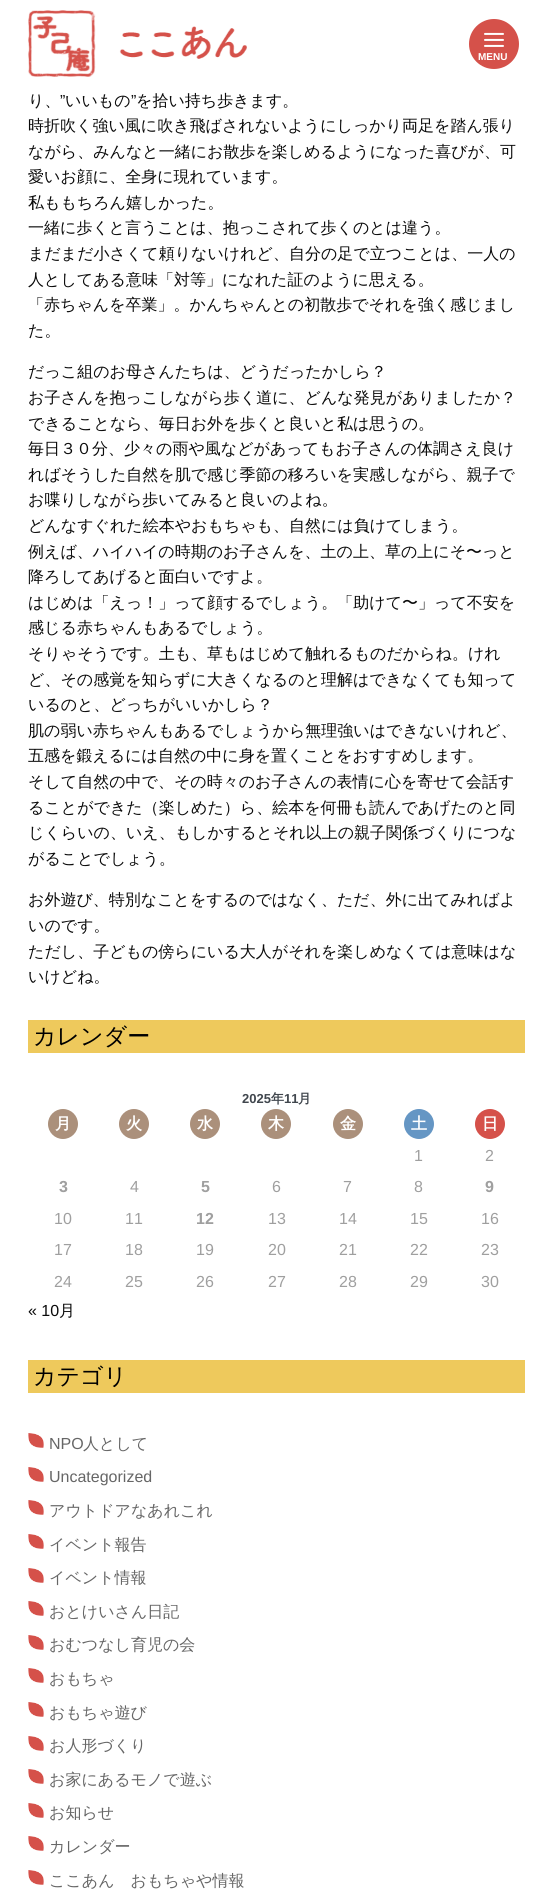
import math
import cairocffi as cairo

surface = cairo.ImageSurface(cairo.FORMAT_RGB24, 553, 1895)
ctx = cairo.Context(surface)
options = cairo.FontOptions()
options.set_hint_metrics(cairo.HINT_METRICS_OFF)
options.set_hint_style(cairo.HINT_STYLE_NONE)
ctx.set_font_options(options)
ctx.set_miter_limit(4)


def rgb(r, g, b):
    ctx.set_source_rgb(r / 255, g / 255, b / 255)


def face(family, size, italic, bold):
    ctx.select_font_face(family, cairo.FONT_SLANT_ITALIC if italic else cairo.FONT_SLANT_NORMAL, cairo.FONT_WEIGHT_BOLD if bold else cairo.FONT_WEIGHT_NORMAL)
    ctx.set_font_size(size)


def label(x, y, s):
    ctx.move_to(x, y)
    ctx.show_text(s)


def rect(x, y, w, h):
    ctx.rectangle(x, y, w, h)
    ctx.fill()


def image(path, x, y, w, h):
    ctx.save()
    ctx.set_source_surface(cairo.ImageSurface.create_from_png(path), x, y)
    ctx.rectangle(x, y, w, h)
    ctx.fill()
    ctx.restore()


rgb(255, 255, 255)
ctx.paint()
image('image0.png', 28, 10, 219, 67)
rgb(213, 81, 74)
ctx.arc(494, 44, 25, 0, 2 * math.pi)
ctx.fill()
image('image1.png', 484, 32, 20, 15)
face('Liberation Sans', 10, 0, 1)
rgb(255, 255, 255)
label(478, 60, 'MENU')
face('WenQuanYi Zen Hei Medium', 16, 0, 0)
rgb(10, 10, 10)
label(28, 106, 'り、')
face('Liberation Sans', 16, 0, 0)
label(60, 106, '”')
face('WenQuanYi Zen Hei Medium', 16, 0, 0)
label(65, 106, 'いいもの')
face('Liberation Sans', 16, 0, 0)
label(131, 106, '”')
face('WenQuanYi Zen Hei Medium', 16, 0, 0)
label(136, 106, 'を拾い持ち歩きます。')
label(28, 131, '時折吹く強い風に吹き飛ばされないようにしっかり両足を踏ん張り')
label(28, 157, 'ながら、みんなと一緒にお散歩を楽しめるようになった喜びが、可')
label(28, 182, '愛いお顔に、全身に現れています。')
label(28, 208, '私ももちろん嬉しかった。')
label(28, 233, '一緒に歩くと言うことは、抱っこされて歩くのとは違う。')
label(28, 259, 'まだまだ小さくて頼りないけれど、自分の足で立つことは、一人の')
label(28, 285, '人としてある意味「対等」になれた証のように思える。')
label(28, 310, '「赤ちゃんを卒業」。かんちゃんとの初散歩でそれを強く感じまし')
label(28, 336, 'た。')
label(28, 377, 'だっこ組のお母さんたちは、どうだったかしら？')
label(28, 403, 'お子さんを抱っこしながら歩く道に、どんな発見がありましたか？')
label(28, 429, 'できることなら、毎日お外を歩くと良いと私は思うの。')
label(28, 454, '毎日３０分、少々の雨や風などがあってもお子さんの体調さえ良け')
label(28, 480, 'ればそうした自然を肌で感じ季節の移ろいを実感しながら、親子で')
label(28, 505, 'お喋りしながら歩いてみると良いのよね。')
label(28, 531, 'どんなすぐれた絵本やおもちゃも、自然には負けてしまう。')
label(28, 557, '例えば、ハイハイの時期のお子さんを、土の上、草の上にそ〜っと')
label(28, 582, '降ろしてあげると面白いですよ。')
label(28, 608, 'はじめは「えっ！」って顔するでしょう。「助けて〜」って不安を')
label(28, 633, '感じる赤ちゃんもあるでしょう。')
label(28, 659, 'そりゃそうです。土も、草もはじめて触れるものだからね。けれ')
label(28, 685, 'ど、その感覚を知らずに大きくなるのと理解はできなくても知って')
label(28, 710, 'いるのと、どっちがいいかしら？')
label(28, 736, '肌の弱い赤ちゃんもあるでしょうから無理強いはできないけれど、')
label(28, 761, '五感を鍛えるには自然の中に身を置くことをおすすめします。')
label(28, 787, 'そして自然の中で、その時々のお子さんの表情に心を寄せて会話す')
label(28, 813, 'ることができた（楽しめた）ら、絵本を何冊も読んであげたのと同')
label(28, 838, 'じくらいの、いえ、もしかするとそれ以上の親子関係づくりにつな')
label(28, 864, 'がることでしょう。')
label(28, 905, 'お外遊び、特別なことをするのではなく、ただ、外に出てみればよ')
label(28, 931, 'いのです。')
label(28, 957, 'ただし、子どもの傍らにいる大人がそれを楽しめなくては意味はな')
label(28, 982, 'いけどね。')
rgb(238, 201, 92)
rect(28, 1020, 497, 33)
face('WenQuanYi Zen Hei Medium', 23, 0, 0)
rgb(0, 0, 0)
label(33, 1044, 'カレンダー')
face('Liberation Sans', 13, 0, 1)
rgb(64, 70, 77)
label(242, 1103, '2025')
face('WenQuanYi Zen Hei', 13, 0, 1)
label(271, 1103, '年')
face('Liberation Sans', 13, 0, 1)
label(284, 1103, '11')
face('WenQuanYi Zen Hei', 13, 0, 1)
label(298, 1103, '月')
rgb(171, 144, 123)
ctx.new_path()
ctx.arc(63, 1124, 15, 0, 2 * math.pi)
ctx.fill()
face('WenQuanYi Zen Hei', 16, 0, 1)
rgb(255, 255, 255)
label(55, 1129, '月')
rgb(171, 144, 123)
ctx.new_path()
ctx.arc(134, 1124, 15, 0, 2 * math.pi)
ctx.fill()
rgb(255, 255, 255)
label(126, 1129, '火')
rgb(171, 144, 123)
ctx.new_path()
ctx.arc(205, 1124, 15, 0, 2 * math.pi)
ctx.fill()
rgb(255, 255, 255)
label(197, 1129, '水')
rgb(171, 144, 123)
ctx.new_path()
ctx.arc(276, 1124, 15, 0, 2 * math.pi)
ctx.fill()
rgb(255, 255, 255)
label(268, 1129, '木')
rgb(171, 144, 123)
ctx.new_path()
ctx.arc(348, 1124, 15, 0, 2 * math.pi)
ctx.fill()
rgb(255, 255, 255)
label(340, 1129, '金')
rgb(101, 150, 196)
ctx.new_path()
ctx.arc(419, 1124, 15, 0, 2 * math.pi)
ctx.fill()
rgb(255, 255, 255)
label(411, 1129, '土')
rgb(213, 81, 74)
ctx.new_path()
ctx.arc(490, 1124, 15, 0, 2 * math.pi)
ctx.fill()
rgb(255, 255, 255)
label(482, 1129, '日')
face('Liberation Sans', 16, 0, 0)
rgb(159, 159, 159)
label(414, 1161, '1')
label(485, 1161, '2')
face('Liberation Sans', 16, 0, 1)
label(59, 1192, '3')
face('Liberation Sans', 16, 0, 0)
label(130, 1192, '4')
face('Liberation Sans', 16, 0, 1)
label(201, 1192, '5')
face('Liberation Sans', 16, 0, 0)
label(272, 1192, '6')
label(343, 1192, '7')
label(414, 1192, '8')
face('Liberation Sans', 16, 0, 1)
label(485, 1192, '9')
face('Liberation Sans', 16, 0, 0)
label(54, 1224, '10')
label(125, 1224, '11')
face('Liberation Sans', 16, 0, 1)
label(196, 1224, '12')
face('Liberation Sans', 16, 0, 0)
label(268, 1224, '13')
label(339, 1224, '14')
label(410, 1224, '15')
label(481, 1224, '16')
label(54, 1255, '17')
label(125, 1255, '18')
label(196, 1255, '19')
label(268, 1255, '20')
label(339, 1255, '21')
label(410, 1255, '22')
label(481, 1255, '23')
label(54, 1287, '24')
label(125, 1287, '25')
label(196, 1287, '26')
label(268, 1287, '27')
label(339, 1287, '28')
label(410, 1287, '29')
label(481, 1287, '30')
rgb(10, 10, 10)
label(28, 1316, '« 10')
face('WenQuanYi Zen Hei Medium', 16, 0, 0)
label(59, 1316, '月')
rgb(238, 201, 92)
rect(28, 1360, 497, 33)
face('WenQuanYi Zen Hei Medium', 23, 0, 0)
rgb(0, 0, 0)
label(33, 1384, 'カテゴリ')
image('image2.png', 28, 1433, 16, 15)
face('Liberation Sans', 16, 0, 0)
rgb(102, 102, 102)
label(49, 1449, 'NPO')
face('WenQuanYi Zen Hei Medium', 16, 0, 0)
label(83, 1449, '人として')
image('image3.png', 28, 1467, 16, 15)
face('Liberation Sans', 16, 0, 0)
label(49, 1482, 'Uncategorized')
image('image2.png', 28, 1500, 16, 15)
face('WenQuanYi Zen Hei Medium', 16, 0, 0)
label(49, 1516, 'アウトドアなあれこれ')
image('image2.png', 28, 1534, 16, 15)
label(49, 1550, 'イベント報告')
image('image2.png', 28, 1568, 16, 15)
label(49, 1583, 'イベント情報')
image('image2.png', 28, 1601, 16, 15)
label(49, 1617, 'おとけいさん日記')
image('image2.png', 28, 1635, 16, 15)
label(49, 1650, 'おむつなし育児の会')
image('image2.png', 28, 1668, 16, 15)
label(49, 1684, 'おもちゃ')
image('image2.png', 28, 1702, 16, 15)
label(49, 1718, 'おもちゃ遊び')
image('image2.png', 28, 1736, 16, 15)
label(49, 1751, 'お人形づくり')
image('image2.png', 28, 1769, 16, 15)
label(49, 1785, 'お家にあるモノで遊ぶ')
image('image2.png', 28, 1803, 16, 15)
label(49, 1818, 'お知らせ')
image('image2.png', 28, 1836, 16, 15)
label(49, 1852, 'カレンダー')
image('image2.png', 28, 1870, 16, 15)
label(49, 1886, 'ここあん　おもちゃや情報')
surface.write_to_png('render.png')
